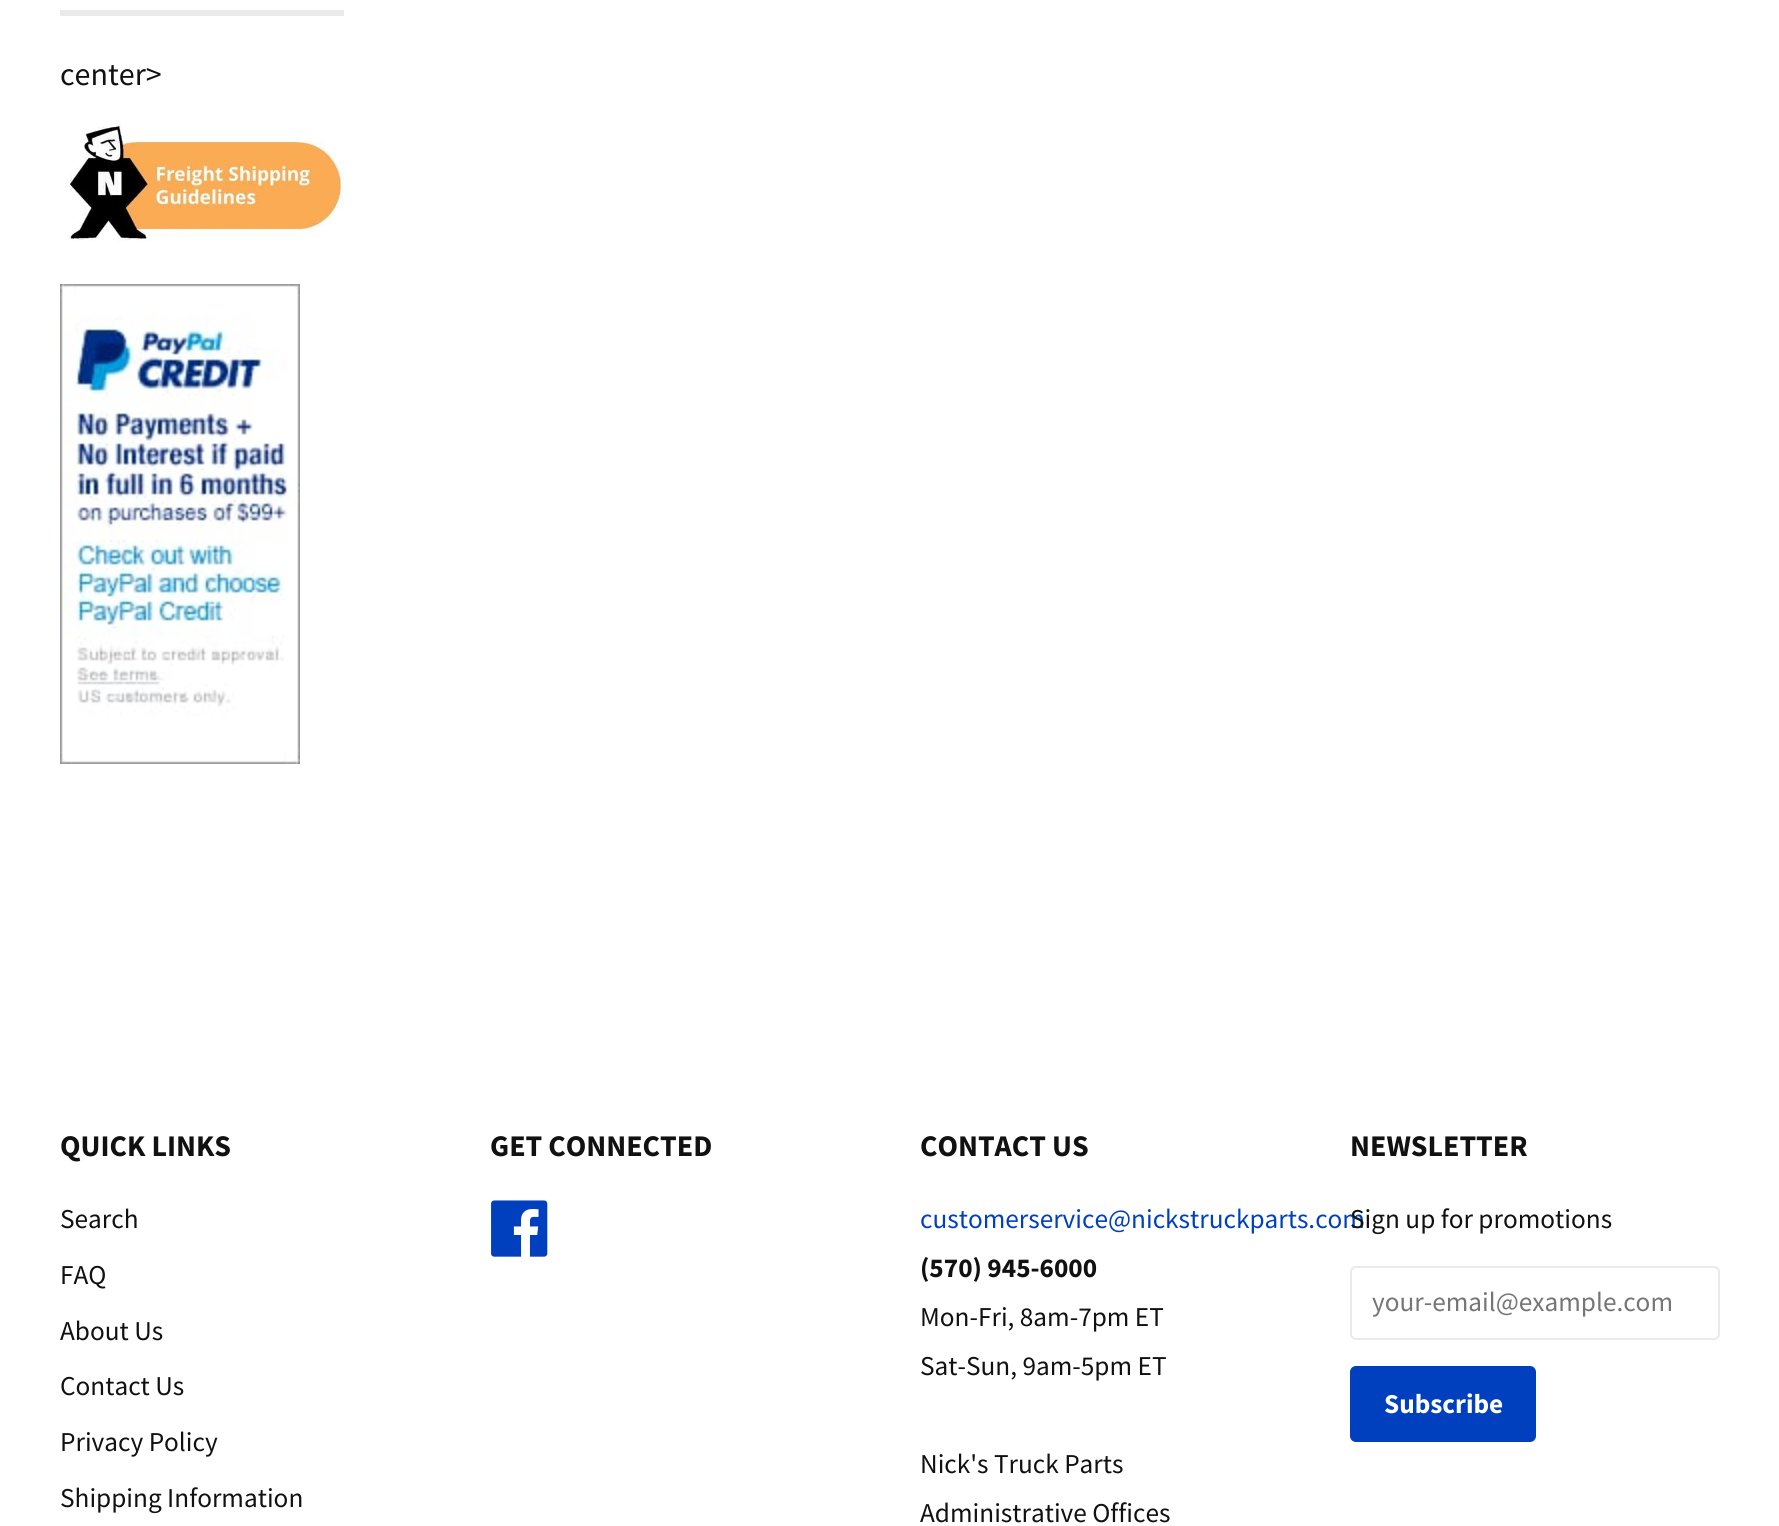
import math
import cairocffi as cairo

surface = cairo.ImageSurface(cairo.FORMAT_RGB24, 1779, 1526)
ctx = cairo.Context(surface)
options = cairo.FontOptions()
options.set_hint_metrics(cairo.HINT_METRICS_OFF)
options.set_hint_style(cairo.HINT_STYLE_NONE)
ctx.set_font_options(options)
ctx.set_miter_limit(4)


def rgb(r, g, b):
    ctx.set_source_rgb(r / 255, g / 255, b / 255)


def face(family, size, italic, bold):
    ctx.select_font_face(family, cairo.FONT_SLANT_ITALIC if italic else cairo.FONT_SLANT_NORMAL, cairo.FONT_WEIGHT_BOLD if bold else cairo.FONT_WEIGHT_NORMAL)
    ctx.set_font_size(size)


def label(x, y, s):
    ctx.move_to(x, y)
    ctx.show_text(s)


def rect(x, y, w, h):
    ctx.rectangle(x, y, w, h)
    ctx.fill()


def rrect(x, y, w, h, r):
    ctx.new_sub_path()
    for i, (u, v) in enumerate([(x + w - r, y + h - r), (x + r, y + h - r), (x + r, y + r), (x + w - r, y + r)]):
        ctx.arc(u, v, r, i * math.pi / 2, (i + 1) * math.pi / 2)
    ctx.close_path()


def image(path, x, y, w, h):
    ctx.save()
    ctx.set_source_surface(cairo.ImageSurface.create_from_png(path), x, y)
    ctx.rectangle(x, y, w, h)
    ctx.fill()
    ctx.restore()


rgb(255, 255, 255)
ctx.paint()
rgb(234, 234, 234)
rect(60, 10, 284, 6)
face('Source Sans Pro', 32, 0, 0)
rgb(17, 17, 17)
label(60, 85, 'center>')
image('image0.png', 69, 122, 275, 119)
image('image1.png', 60, 284, 240, 480)
face('Source Sans Pro', 30, 0, 1)
label(60, 1156, 'QUICK LINKS')
face('Source Sans Pro', 27.25, 0, 0)
label(60, 1228, 'Search')
label(60, 1284, 'FAQ')
label(60, 1340, 'About Us')
label(60, 1395, 'Contact Us')
label(60, 1451, 'Privacy Policy')
label(60, 1507, 'Shipping Information')
face('Source Sans Pro', 30, 0, 1)
label(490, 1156, 'GET CONNECTED')
image('image2.png', 491, 1200, 57, 57)
label(920, 1156, 'CONTACT US')
face('Source Sans Pro', 27.25, 0, 0)
rgb(0, 64, 191)
label(920, 1228, 'customerservice@nickstruckparts.com')
face('Source Sans Pro', 27.25, 0, 1)
rgb(17, 17, 17)
label(920, 1277, '(570) 945-6000')
face('Source Sans Pro', 27.25, 0, 0)
label(920, 1326, 'Mon-Fri, 8am-7pm ET')
label(920, 1375, 'Sat-Sun, 9am-5pm ET')
label(920, 1473, 'Nick\'s Truck Parts')
label(920, 1522, 'Administrative Offices')
face('Source Sans Pro', 30, 0, 1)
label(1350, 1156, 'NEWSLETTER')
face('Source Sans Pro', 27.25, 0, 0)
label(1350, 1228, 'Sign up for promotions')
rrect(1351, 1267, 368, 72, 5)
rgb(234, 234, 234)
ctx.stroke()
rgb(117, 117, 117)
label(1372, 1311, 'your-email@example.com')
rgb(0, 64, 191)
rrect(1350, 1366, 186, 76, 6)
ctx.fill()
face('Source Sans Pro', 27.25, 0, 1)
rgb(255, 255, 255)
label(1384, 1413, 'Subscribe')
surface.write_to_png('render.png')
